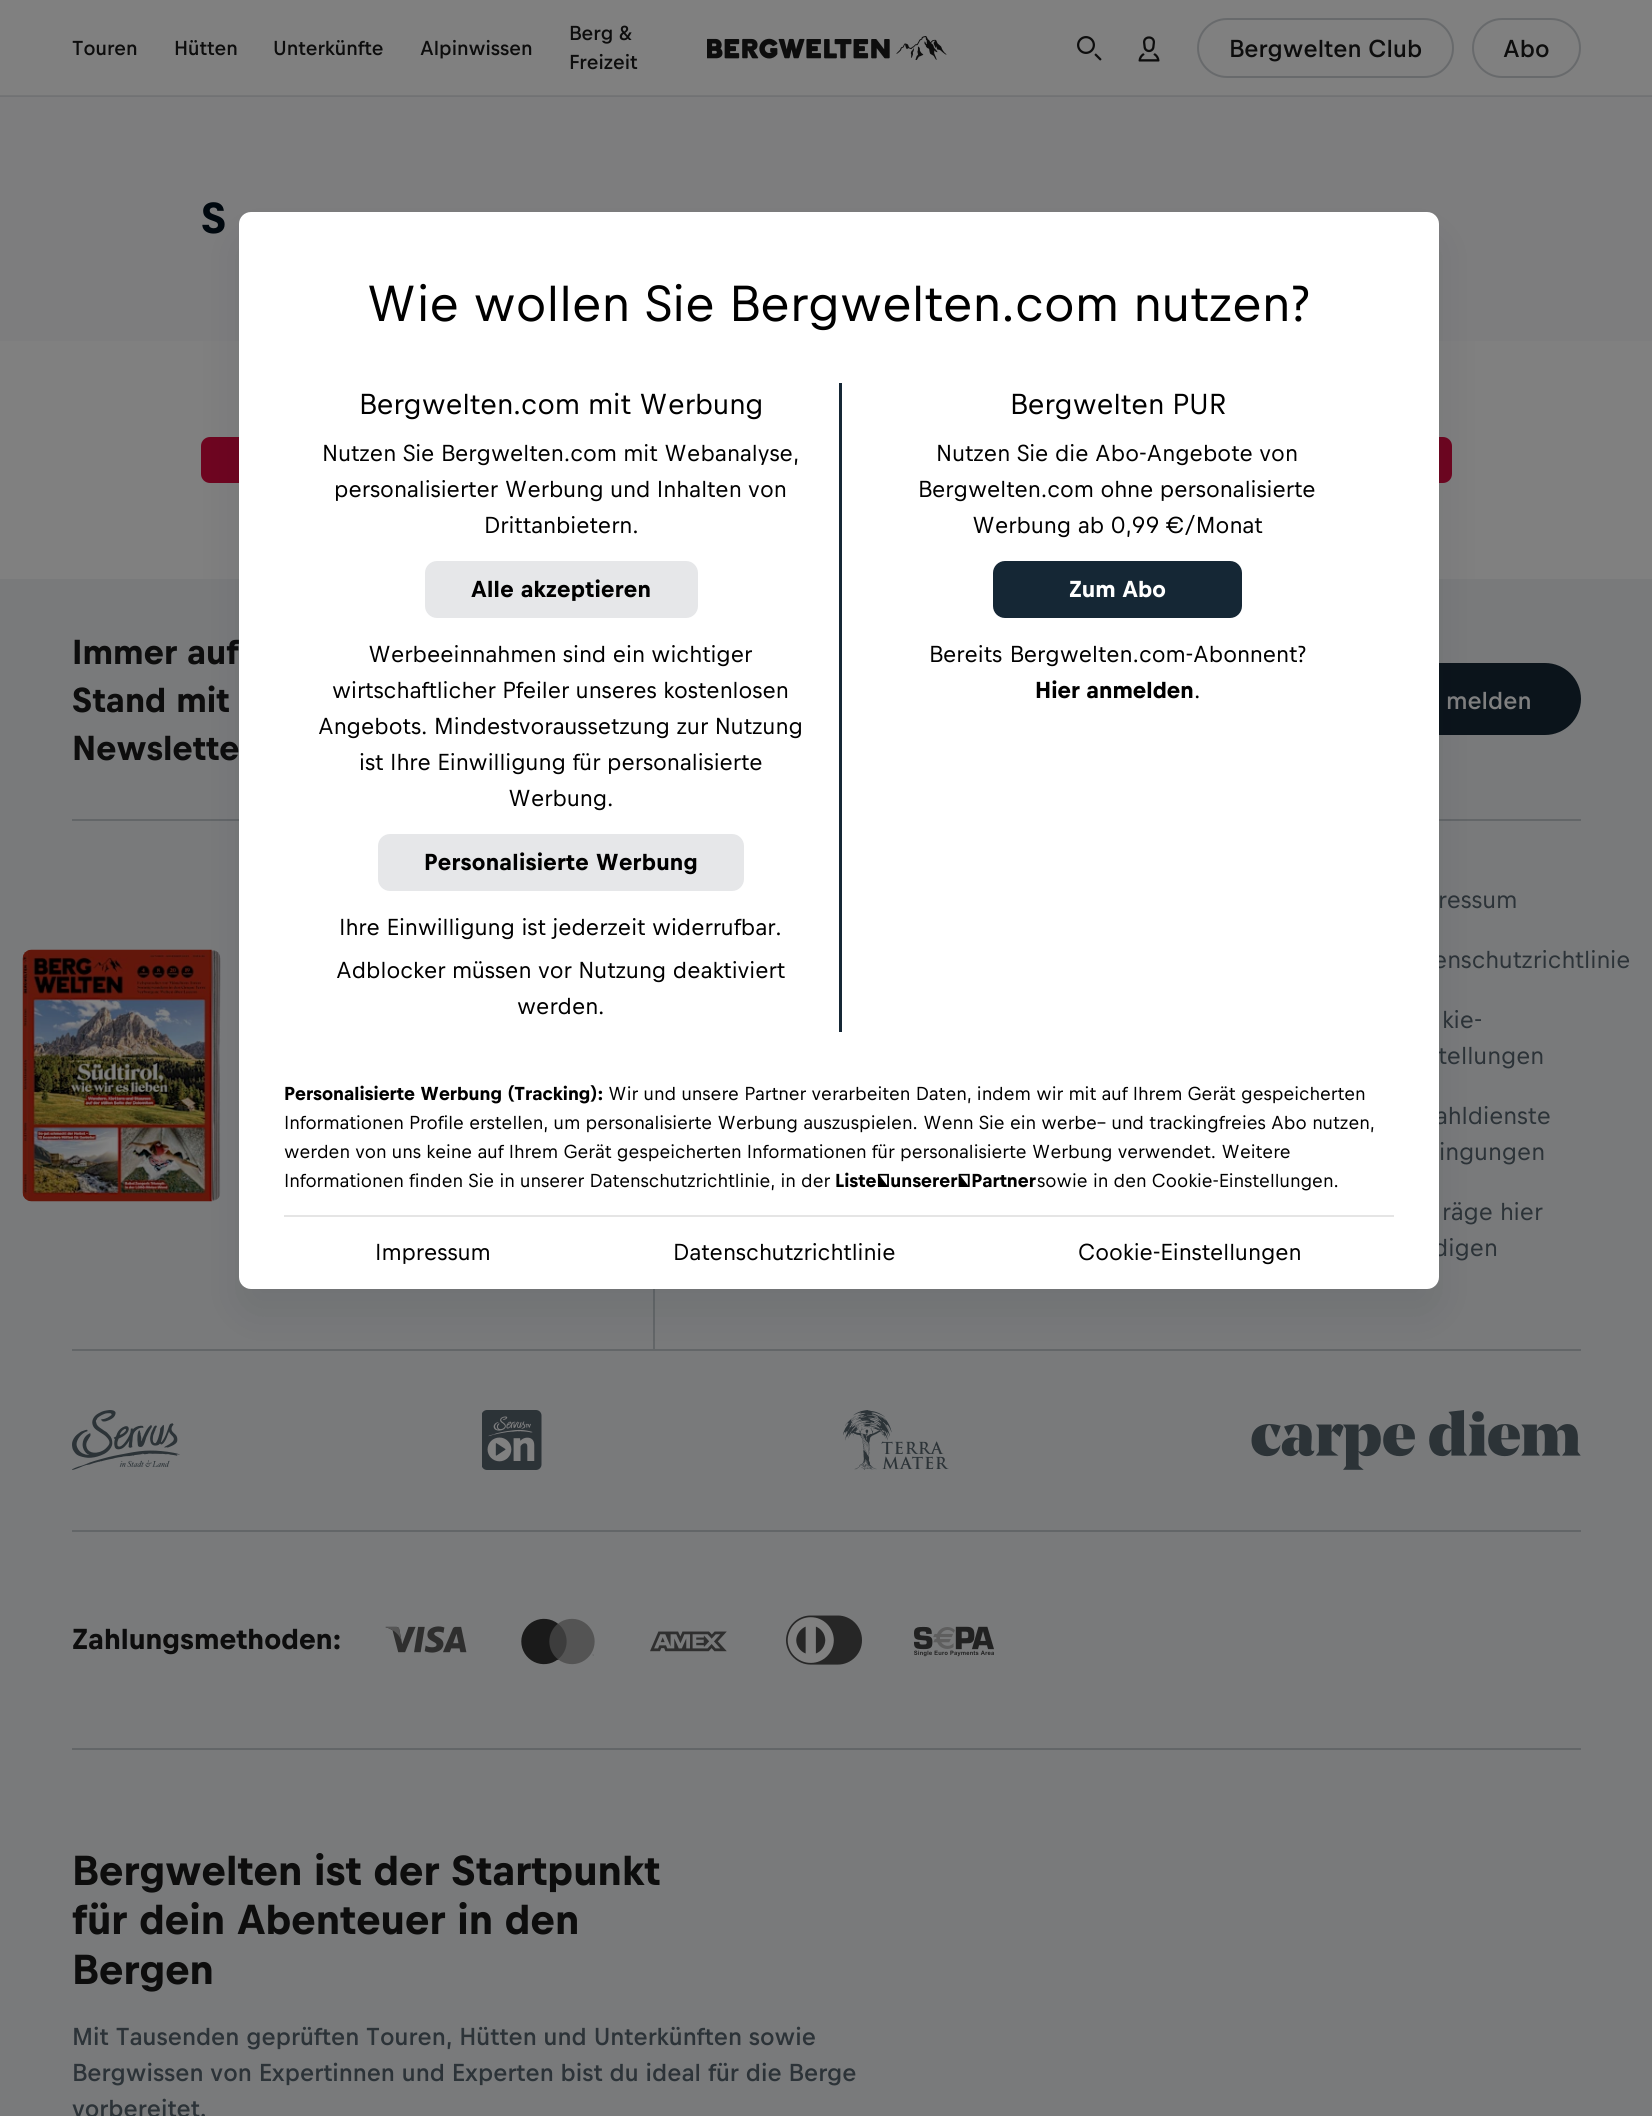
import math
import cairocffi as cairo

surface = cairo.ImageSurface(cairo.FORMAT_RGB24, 1652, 2116)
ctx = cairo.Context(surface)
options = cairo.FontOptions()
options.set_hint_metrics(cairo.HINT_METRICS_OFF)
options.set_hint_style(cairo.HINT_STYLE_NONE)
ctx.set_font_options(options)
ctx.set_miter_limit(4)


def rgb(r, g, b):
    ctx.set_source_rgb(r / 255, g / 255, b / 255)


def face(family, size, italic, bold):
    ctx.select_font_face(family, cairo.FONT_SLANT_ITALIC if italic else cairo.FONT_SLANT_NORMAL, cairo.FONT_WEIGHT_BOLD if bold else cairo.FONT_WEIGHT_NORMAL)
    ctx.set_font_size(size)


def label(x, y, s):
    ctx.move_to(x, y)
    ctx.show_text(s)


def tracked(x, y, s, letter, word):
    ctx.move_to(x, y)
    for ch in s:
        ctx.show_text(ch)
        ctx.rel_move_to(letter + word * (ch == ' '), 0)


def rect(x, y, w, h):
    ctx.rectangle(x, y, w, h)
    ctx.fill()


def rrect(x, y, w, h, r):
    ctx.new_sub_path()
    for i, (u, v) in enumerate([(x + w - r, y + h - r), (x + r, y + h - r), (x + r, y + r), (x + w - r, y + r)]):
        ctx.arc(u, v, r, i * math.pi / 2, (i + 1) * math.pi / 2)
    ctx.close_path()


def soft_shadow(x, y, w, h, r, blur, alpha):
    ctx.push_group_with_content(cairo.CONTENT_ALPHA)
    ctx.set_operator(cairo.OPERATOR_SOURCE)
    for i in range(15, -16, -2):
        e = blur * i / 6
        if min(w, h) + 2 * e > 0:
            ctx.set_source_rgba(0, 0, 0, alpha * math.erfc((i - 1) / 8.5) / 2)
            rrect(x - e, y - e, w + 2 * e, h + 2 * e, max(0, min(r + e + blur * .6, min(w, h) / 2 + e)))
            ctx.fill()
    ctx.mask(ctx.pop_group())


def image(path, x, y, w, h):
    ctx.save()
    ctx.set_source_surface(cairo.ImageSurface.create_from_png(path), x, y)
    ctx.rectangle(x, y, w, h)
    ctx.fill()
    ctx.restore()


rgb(128, 128, 128)
ctx.paint()
rgb(116, 117, 118)
rect(0, 95, 1652, 1)
face('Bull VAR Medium', 21, 0, 0)
rgb(13, 13, 13)
label(72, 55, 'Touren')
label(174, 55, 'Hütten')
label(273, 55, 'Unterkünfte')
label(420, 55, 'Alpinwissen')
label(569, 40, 'Berg &')
label(569, 69, 'Freizeit')
image('image0.png', 707, 36, 240, 24)
image('image1.png', 1077, 36, 25, 25)
image('image2.png', 1138, 36, 22, 26)
rrect(1198, 19, 255, 58, 29)
rgb(104, 106, 108)
ctx.stroke()
face('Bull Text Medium', 25.5, 0, 0)
rgb(13, 13, 13)
label(1229, 57, 'Bergwelten Club')
rrect(1473, 19, 107, 58, 29)
rgb(104, 106, 108)
ctx.stroke()
rgb(13, 13, 13)
label(1503, 57, 'Abo')
rgb(125, 125, 126)
rect(0, 97, 1652, 244)
rgb(113, 114, 116)
rect(0, 96, 1652, 1)
face('Bull Text', 45, 0, 1)
rgb(0, 8, 15)
label(201, 233, 'S')
rgb(110, 5, 32)
rrect(201, 437, 1251, 46, 9)
ctx.fill()
rgb(121, 122, 123)
rect(0, 579, 1652, 1537)
face('Bull Text', 36, 0, 1)
rgb(13, 13, 13)
label(72, 664, 'Immer auf')
label(72, 712, 'Stand mit')
label(72, 760, 'Newslette')
rgb(11, 20, 27)
rrect(1307, 663, 274, 72, 36)
ctx.fill()
face('Bull Text Medium', 25.5, 0, 0)
rgb(128, 128, 128)
label(1446, 709, 'melden')
rgb(99, 102, 104)
rect(72, 819, 1509, 2)
image('image3.png', 22, 949, 199, 253)
face('Bull Text', 25.5, 0, 0)
rgb(44, 51, 56)
label(1438, 908, 'ressum')
label(1433, 968, 'enschutzrichtlinie')
label(1442, 1028, 'kie-')
label(1438, 1064, 'tellungen')
label(1435, 1124, 'ahldienste')
label(1439, 1160, 'ingungen')
label(1442, 1220, 'räge hier')
label(1433, 1256, 'digen')
rgb(99, 102, 104)
rect(653, 1289, 2, 60)
rect(72, 1349, 1509, 2)
image('image4.png', 72, 1410, 108, 60)
image('image5.png', 482, 1410, 60, 60)
image('image6.png', 843, 1410, 106, 60)
image('image7.png', 1251, 1410, 330, 60)
rect(72, 1530, 1509, 2)
face('Bull Text', 30, 0, 1)
rgb(13, 13, 13)
label(72, 1649, 'Zahlungsmethoden:')
image('image8.png', 385, 1626, 82, 27)
image('image9.png', 521, 1618, 74, 47)
image('image10.png', 650, 1631, 77, 21)
image('image11.png', 786, 1615, 76, 50)
image('image12.png', 913, 1626, 81, 31)
rgb(99, 102, 104)
rect(72, 1748, 1509, 2)
face('Bull Text', 43.5, 0, 1)
rgb(13, 13, 13)
label(72, 1885, 'Bergwelten ist der Startpunkt')
label(72, 1934, 'für dein Abenteuer in den')
label(72, 1984, 'Bergen')
face('Bull Text Medium', 25.5, 0, 0)
rgb(44, 51, 56)
label(72, 2045, 'Mit Tausenden geprüften Touren, Hütten und Unterkünften sowie')
label(72, 2081, 'Bergwissen von Expertinnen und Experten bist du ideal für die Berge')
label(72, 2117, 'vorbereitet.')
rgb(0, 15, 30)
soft_shadow(239, 236, 1200, 1077, 12, 24, 0.08)
rgb(255, 255, 255)
rrect(239, 212, 1200, 1077, 12)
ctx.fill()
face('Bull VAR', 52.5, 0, 0)
rgb(0, 0, 0)
label(366, 321, 'Wie wollen Sie Bergwelten.com nutzen?')
face('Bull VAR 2', 30, 0, 0)
label(359, 414, 'Bergwelten.com mit Werbung')
face('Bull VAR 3', 24, 0, 0)
label(322, 461, 'Nutzen Sie Bergwelten.com mit Webanalyse,')
label(334, 497, 'personalisierter Werbung und Inhalten von')
label(484, 533, 'Drittanbietern.')
rgb(230, 231, 233)
rrect(425, 561, 273, 57, 12)
ctx.fill()
face('Bull VAR', 24, 0, 1)
rgb(0, 0, 0)
tracked(471, 597, 'Alle akzeptieren', 0.25, 0)
face('Bull VAR 3', 24, 0, 0)
label(368, 662, 'Werbeeinnahmen sind ein wichtiger')
label(332, 698, 'wirtschaftlicher Pfeiler unseres kostenlosen')
label(318, 734, 'Angebots. Mindestvoraussetzung zur Nutzung')
label(359, 770, 'ist Ihre Einwilligung für personalisierte')
label(508, 806, 'Werbung.')
rgb(230, 231, 233)
rrect(378, 834, 366, 57, 12)
ctx.fill()
face('Bull VAR', 24, 0, 1)
rgb(0, 0, 0)
tracked(424, 870, 'Personalisierte Werbung', 0.25, 0)
face('Bull VAR 3', 24, 0, 0)
label(339, 935, 'Ihre Einwilligung ist jederzeit widerrufbar.')
label(336, 978, 'Adblocker müssen vor Nutzung deaktiviert')
label(517, 1014, 'werden.')
rgb(21, 39, 53)
rect(839, 383, 3, 649)
face('Bull VAR 2', 30, 0, 0)
rgb(0, 0, 0)
label(1010, 414, 'Bergwelten PUR')
face('Bull VAR 3', 24, 0, 0)
label(936, 461, 'Nutzen Sie die Abo-Angebote von')
label(918, 497, 'Bergwelten.com ohne personalisierte')
label(972, 533, 'Werbung ab 0,99 €/Monat')
rgb(21, 39, 53)
rrect(994, 562, 247, 55, 11)
ctx.fill_preserve()
ctx.stroke()
face('Bull VAR', 24, 0, 1)
rgb(255, 255, 255)
label(1069, 597, 'Zum Abo')
face('Bull VAR 3', 24, 0, 0)
rgb(0, 0, 0)
tracked(929, 662, 'Bereits Bergwelten.com-Abonnent?', 0, 1)
face('Bull VAR', 24, 0, 1)
label(1035, 698, 'Hier anmelden')
face('Bull VAR 3', 24, 0, 0)
label(1194, 698, '.')
face('Bull VAR', 19.5, 0, 1)
label(284, 1100, 'Personalisierte Werbung (Tracking):')
face('Bull VAR 3', 19.5, 0, 0)
label(608, 1100, 'Wir und unsere Partner verarbeiten Daten, indem wir mit auf Ihrem Gerät gespeicherten')
label(284, 1129, 'Informationen Profile erstellen, um personalisierte Werbung auszuspielen. Wenn Sie ein werbe– und trackingfreies Abo nutzen,')
label(284, 1158, 'werden von uns keine auf Ihrem Gerät gespeicherten Informationen für personalisierte Werbung verwendet. Weitere')
label(284, 1187, 'Informationen finden Sie in unserer Datenschutzrichtlinie, in der')
face('Bull VAR', 19.5, 0, 1)
label(835, 1187, 'Liste unserer Partner')
face('Bull VAR 3', 19.5, 0, 0)
label(1037, 1187, 'sowie in den Cookie-Einstellungen.')
rgb(229, 229, 229)
rect(284, 1215, 1110, 2)
face('Bull VAR 3', 24, 0, 0)
rgb(0, 0, 0)
label(375, 1260, 'Impressum')
label(673, 1260, 'Datenschutzrichtlinie')
label(1078, 1260, 'Cookie-Einstellungen')
surface.write_to_png('render.png')
